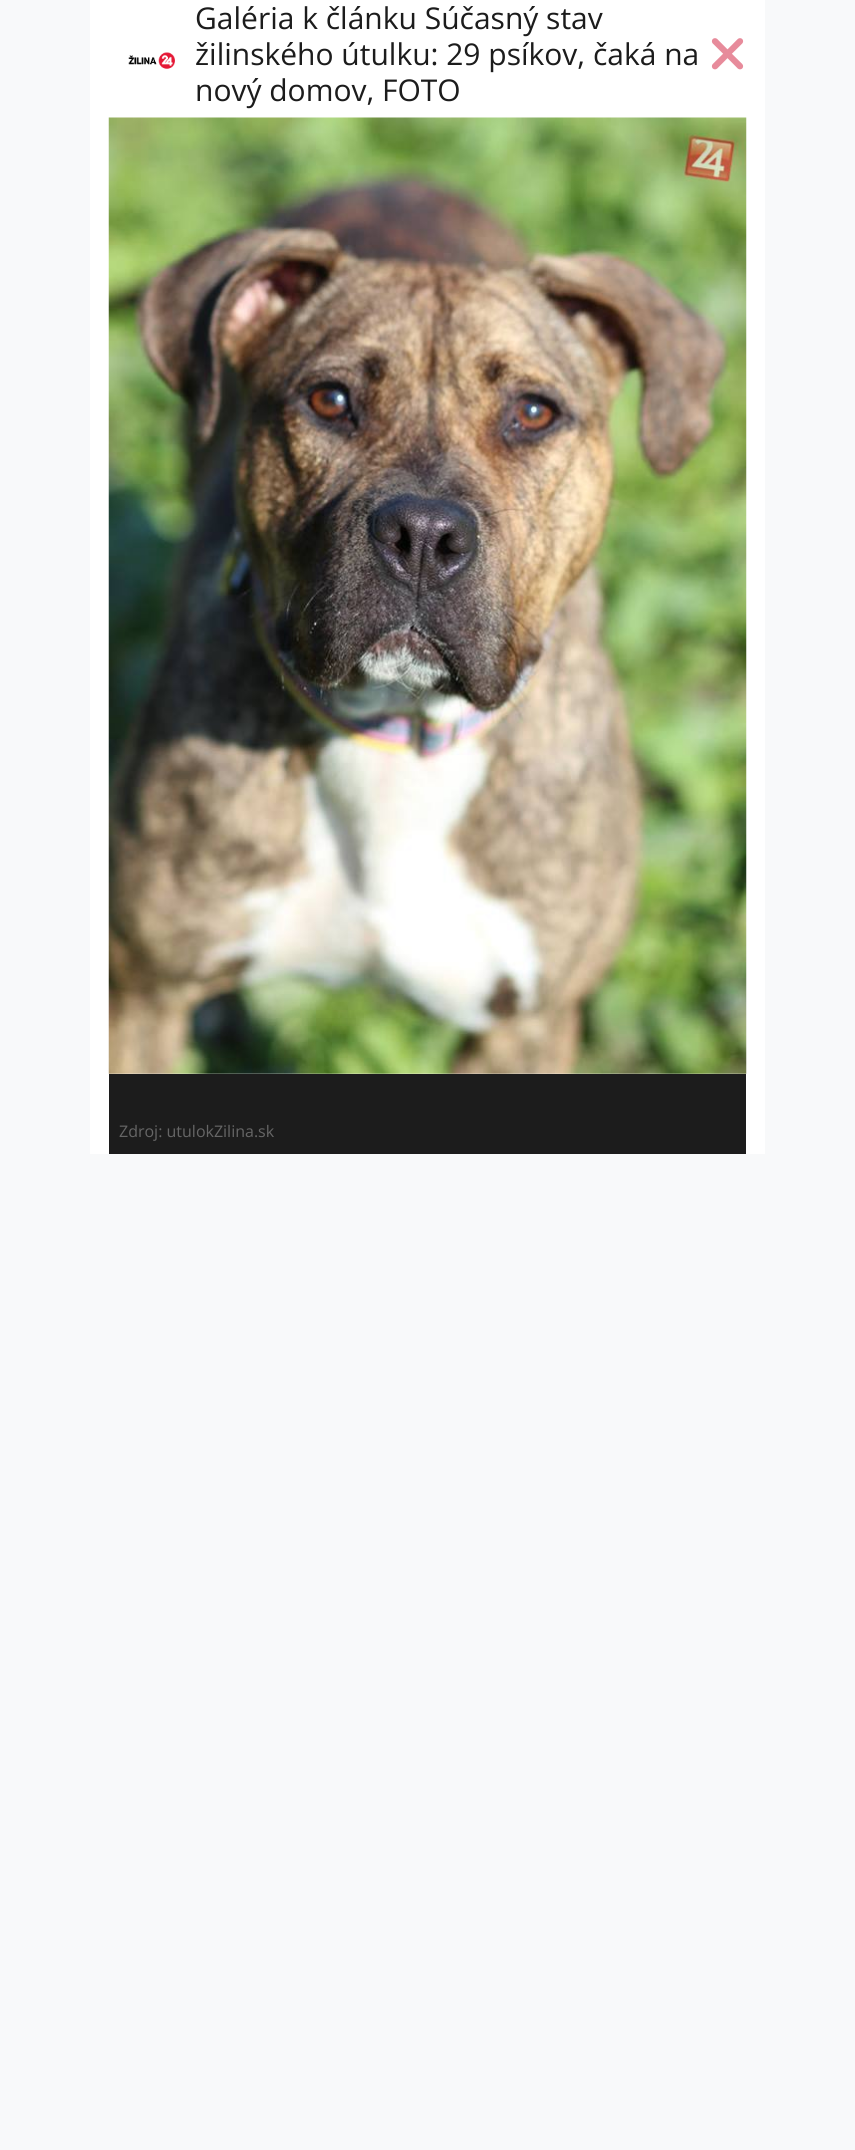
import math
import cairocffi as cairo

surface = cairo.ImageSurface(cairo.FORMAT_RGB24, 855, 2150)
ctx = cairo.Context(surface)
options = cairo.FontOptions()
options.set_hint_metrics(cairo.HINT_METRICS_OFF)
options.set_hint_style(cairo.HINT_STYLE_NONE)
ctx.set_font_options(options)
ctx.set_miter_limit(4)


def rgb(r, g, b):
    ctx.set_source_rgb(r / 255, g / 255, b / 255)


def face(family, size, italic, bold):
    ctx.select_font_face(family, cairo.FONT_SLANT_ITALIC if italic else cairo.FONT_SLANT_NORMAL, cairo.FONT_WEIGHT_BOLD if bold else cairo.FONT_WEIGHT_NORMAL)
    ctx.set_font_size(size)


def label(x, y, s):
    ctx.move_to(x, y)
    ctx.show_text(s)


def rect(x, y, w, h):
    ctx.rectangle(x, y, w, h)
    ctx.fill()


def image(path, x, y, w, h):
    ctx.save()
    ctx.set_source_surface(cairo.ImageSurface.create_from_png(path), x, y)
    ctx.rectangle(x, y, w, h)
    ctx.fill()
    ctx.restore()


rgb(248, 249, 250)
ctx.paint()
rgb(255, 255, 255)
rect(90, 0, 675, 1154)
image('image0.png', 128, 52, 47, 17)
face('Open Sans', 30, 0, 0)
rgb(28, 28, 28)
label(195, 29, 'Galéria k článku Súčasný stav')
label(195, 65, 'žilinského útulku: 29 psíkov, čaká na')
label(195, 101, 'nový domov, FOTO')
image('image1.png', 711, 38, 33, 32)
image('image2.png', 108, 117, 639, 957)
rect(109, 1074, 637, 80)
face('Open Sans', 16, 0, 0)
rgb(102, 102, 102)
label(119, 1137, 'Zdroj: utulokZilina.sk')
surface.write_to_png('render.png')
